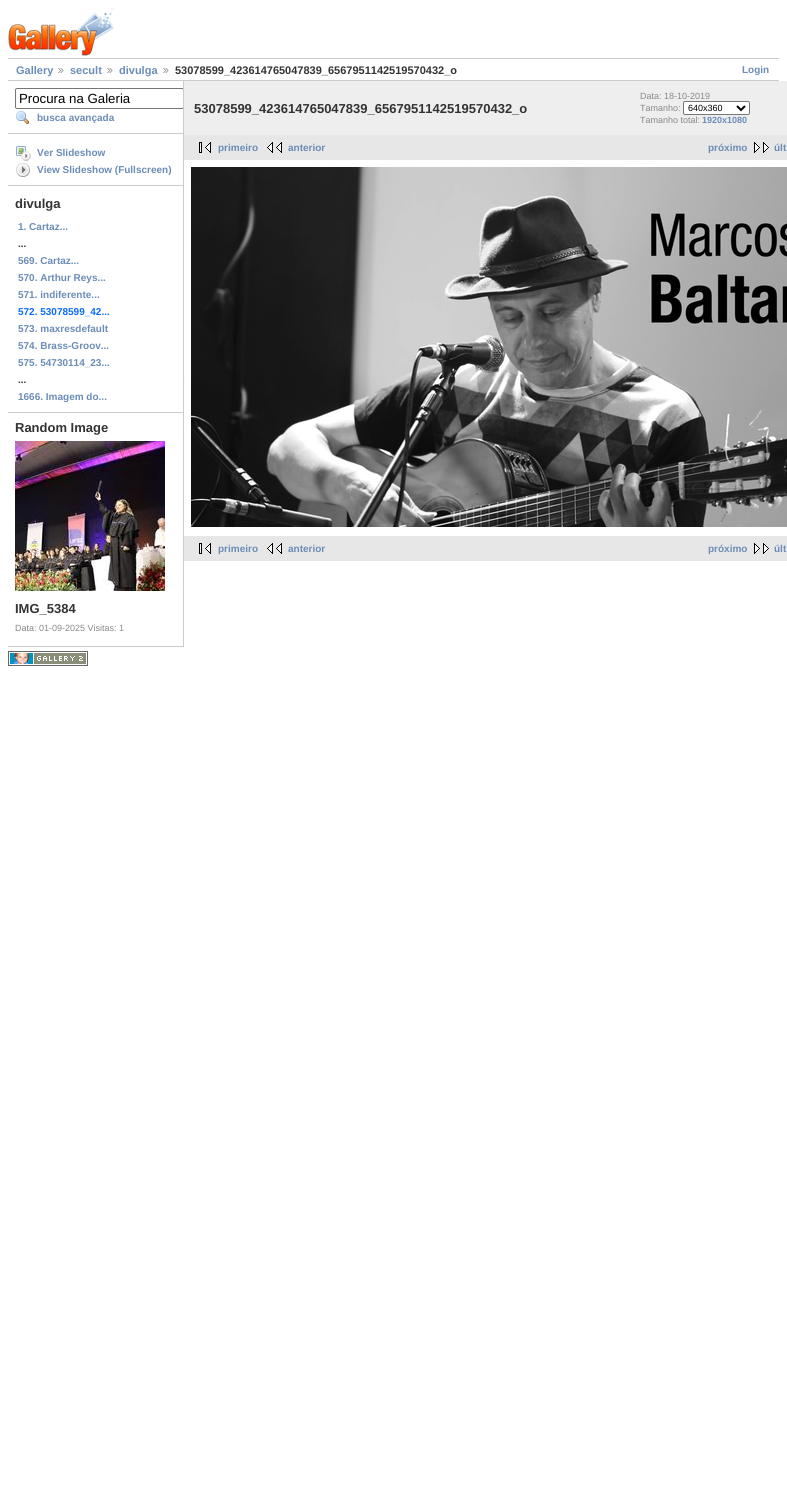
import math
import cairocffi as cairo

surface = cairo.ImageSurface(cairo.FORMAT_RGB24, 787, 1502)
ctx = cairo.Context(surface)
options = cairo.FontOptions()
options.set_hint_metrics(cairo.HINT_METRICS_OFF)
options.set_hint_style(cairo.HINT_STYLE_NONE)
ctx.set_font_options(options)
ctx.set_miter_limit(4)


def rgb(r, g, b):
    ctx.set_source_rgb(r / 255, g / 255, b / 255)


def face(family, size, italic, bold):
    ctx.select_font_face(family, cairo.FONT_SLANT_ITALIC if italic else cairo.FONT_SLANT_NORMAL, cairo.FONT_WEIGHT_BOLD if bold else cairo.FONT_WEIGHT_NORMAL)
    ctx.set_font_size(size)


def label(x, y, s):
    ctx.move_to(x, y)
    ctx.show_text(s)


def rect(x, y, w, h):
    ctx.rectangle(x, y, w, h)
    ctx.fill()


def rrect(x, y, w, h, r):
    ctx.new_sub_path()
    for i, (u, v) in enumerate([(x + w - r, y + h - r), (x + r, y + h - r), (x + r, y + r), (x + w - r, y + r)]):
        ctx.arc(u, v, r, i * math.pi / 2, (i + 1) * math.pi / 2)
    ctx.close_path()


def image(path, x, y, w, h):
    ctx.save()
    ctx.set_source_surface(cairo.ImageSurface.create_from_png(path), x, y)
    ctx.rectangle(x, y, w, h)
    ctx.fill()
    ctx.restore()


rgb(255, 255, 255)
ctx.paint()
image('image0.png', 8, 8, 107, 48)
rgb(204, 204, 204)
rect(8, 58, 771, 1)
rect(8, 80, 771, 1)
face('Liberation Sans', 11, 0, 1)
rgb(107, 140, 183)
label(16, 74, 'Gallery')
image('image1.png', 58, 68, 6, 5)
label(70, 74, 'secult')
image('image1.png', 107, 68, 6, 5)
label(119, 74, 'divulga')
image('image1.png', 163, 68, 6, 5)
rgb(51, 51, 51)
label(175, 74, '53078599_423614765047839_6567951142519570432_o')
face('Liberation Sans', 10, 0, 1)
rgb(107, 140, 183)
label(742, 73, 'Login')
rgb(204, 204, 204)
rect(183, 81, 1, 566)
rect(8, 133, 175, 1)
ctx.save()
ctx.rectangle(8, 81, 175, 566)
ctx.clip()
rrect(15.5, 88.5, 168, 20, 1.5)
rgb(118, 118, 118)
ctx.set_line_width(1)
ctx.stroke()
ctx.restore()
face('Liberation Sans', 13.25, 0, 0)
rgb(0, 0, 0)
label(19, 103, 'Procura na Galeria')
image('image2.png', 16, 111, 13, 14)
face('Liberation Sans', 10, 0, 1)
rgb(107, 140, 183)
label(37, 121, 'busca avançada')
rgb(204, 204, 204)
rect(8, 185, 175, 1)
image('image3.png', 16, 146, 15, 15)
rgb(107, 140, 183)
label(37, 156, 'Ver Slideshow')
image('image4.png', 16, 163, 14, 14)
label(37, 173, 'View Slideshow (Fullscreen)')
rgb(204, 204, 204)
rect(8, 412, 175, 1)
face('Liberation Sans', 13, 0, 1)
rgb(51, 51, 51)
label(15, 208, 'divulga')
face('Liberation Sans', 10, 0, 1)
rgb(107, 140, 183)
label(18, 230, '1. Cartaz...')
rgb(51, 51, 51)
label(18, 247, '...')
rgb(107, 140, 183)
label(18, 264, '569. Cartaz...')
label(18, 281, '570. Arthur Reys...')
label(18, 298, '571. indiferente...')
rgb(11, 108, 255)
label(18, 315, '572. 53078599_42...')
rgb(107, 140, 183)
label(18, 332, '573. maxresdefault')
label(18, 349, '574. Brass-Groov...')
label(18, 366, '575. 54730114_23...')
rgb(51, 51, 51)
label(18, 383, '...')
rgb(107, 140, 183)
label(18, 400, '1666. Imagem do...')
rgb(204, 204, 204)
rect(8, 646, 175, 1)
face('Liberation Sans', 13, 0, 1)
rgb(51, 51, 51)
label(15, 432, 'Random Image')
image('image5.png', 15, 441, 150, 150)
label(15, 613, 'IMG_5384')
face('Liberation Sans', 9, 0, 0)
rgb(136, 136, 136)
label(15, 631, 'Data: 01-09-2025 Visitas: 1')
rgb(238, 238, 238)
rect(184, 81, 603, 54)
face('Liberation Sans', 13, 0, 1)
rgb(51, 51, 51)
label(194, 113, '53078599_423614765047839_6567951142519570432_o')
face('Liberation Sans', 9, 0, 0)
rgb(136, 136, 136)
label(640, 99, 'Data: 18-10-2019')
label(640, 111, 'Tamanho:')
rgb(255, 255, 255)
rrect(683.5, 101.5, 66, 13, 1.5)
ctx.fill_preserve()
rgb(118, 118, 118)
ctx.set_line_width(1)
ctx.stroke()
ctx.new_path()
ctx.move_to(737, 106)
ctx.line_to(741, 110)
ctx.line_to(745, 106)
rgb(0, 0, 0)
ctx.set_line_width(2)
ctx.stroke()
label(688, 111, '640x360')
rgb(136, 136, 136)
label(640, 123, 'Tamanho total:')
face('Liberation Sans', 9, 0, 1)
rgb(107, 140, 183)
label(702, 123, '1920x1080')
rgb(231, 231, 231)
rect(184, 135, 603, 25)
image('image6.png', 199, 142, 12, 11)
face('Liberation Sans', 10, 0, 1)
rgb(107, 140, 183)
label(218, 151, 'primeiro')
image('image7.png', 267, 142, 15, 11)
label(288, 151, 'anterior')
label(708, 151, 'próximo')
image('image8.png', 754, 142, 15, 11)
label(774, 151, 'últ')
image('image9.png', 191, 167, 596, 360)
rgb(231, 231, 231)
rect(184, 536, 603, 25)
image('image6.png', 199, 543, 12, 11)
rgb(107, 140, 183)
label(218, 552, 'primeiro')
image('image7.png', 267, 543, 15, 11)
label(288, 552, 'anterior')
label(708, 552, 'próximo')
image('image8.png', 754, 543, 15, 11)
label(774, 552, 'últ')
image('image10.png', 8, 651, 80, 15)
surface.write_to_png('render.png')
